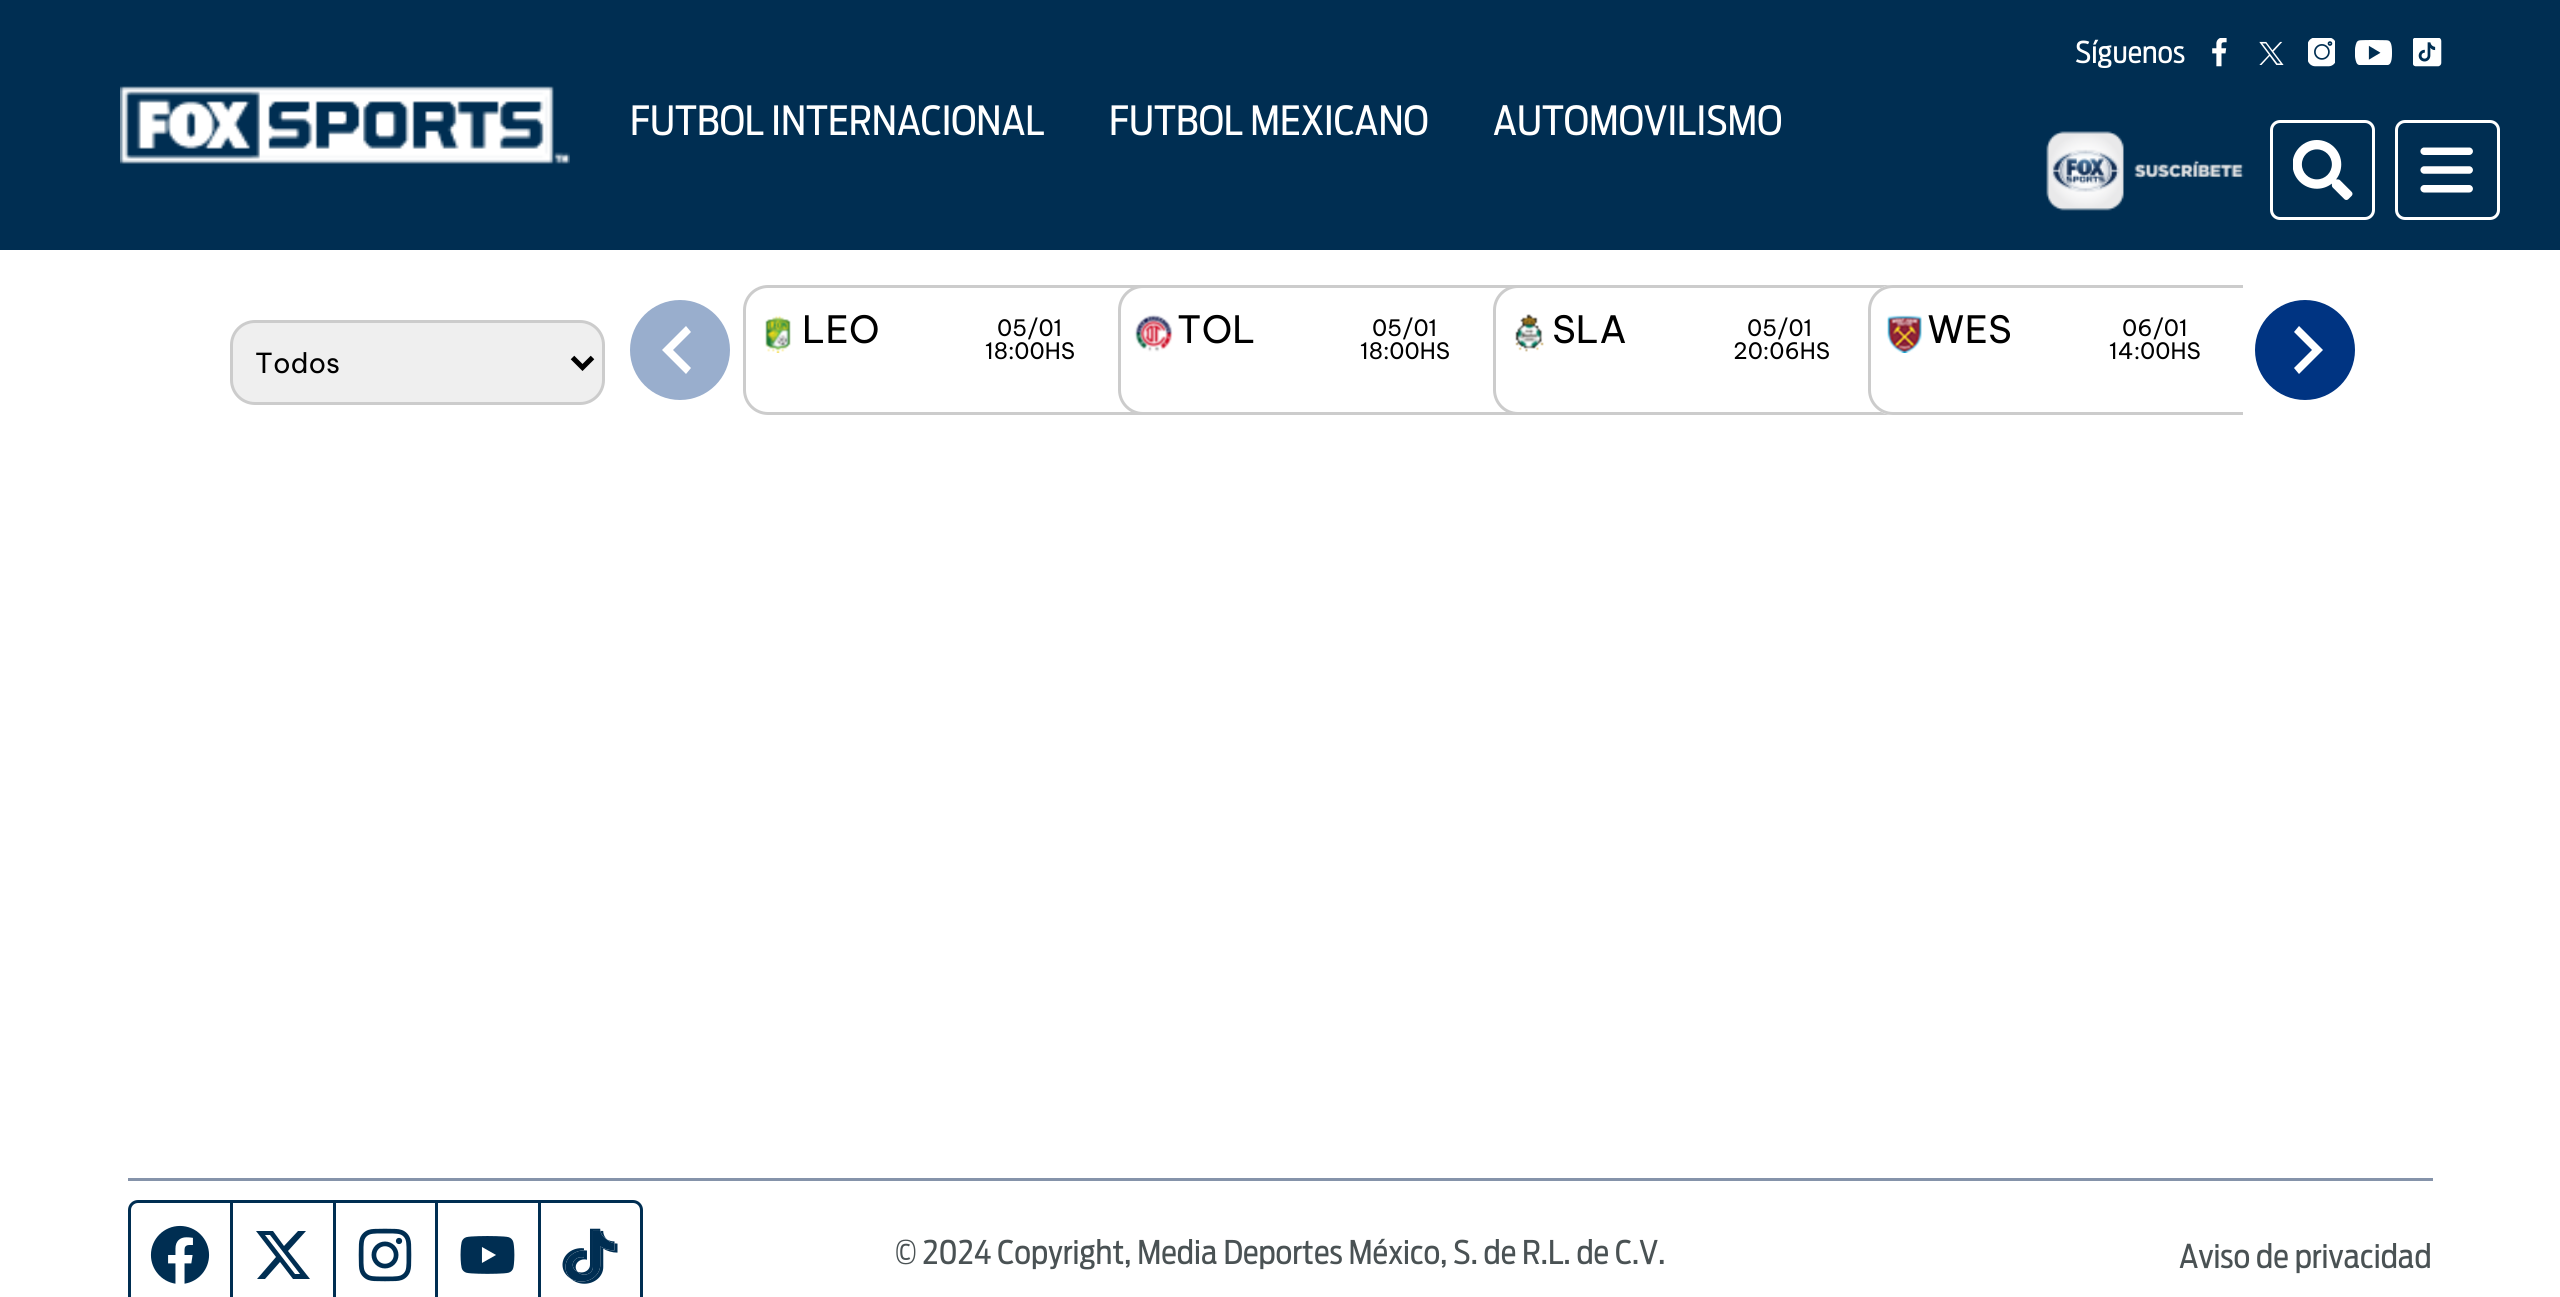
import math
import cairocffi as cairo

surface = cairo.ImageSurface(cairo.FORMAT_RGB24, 2560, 1297)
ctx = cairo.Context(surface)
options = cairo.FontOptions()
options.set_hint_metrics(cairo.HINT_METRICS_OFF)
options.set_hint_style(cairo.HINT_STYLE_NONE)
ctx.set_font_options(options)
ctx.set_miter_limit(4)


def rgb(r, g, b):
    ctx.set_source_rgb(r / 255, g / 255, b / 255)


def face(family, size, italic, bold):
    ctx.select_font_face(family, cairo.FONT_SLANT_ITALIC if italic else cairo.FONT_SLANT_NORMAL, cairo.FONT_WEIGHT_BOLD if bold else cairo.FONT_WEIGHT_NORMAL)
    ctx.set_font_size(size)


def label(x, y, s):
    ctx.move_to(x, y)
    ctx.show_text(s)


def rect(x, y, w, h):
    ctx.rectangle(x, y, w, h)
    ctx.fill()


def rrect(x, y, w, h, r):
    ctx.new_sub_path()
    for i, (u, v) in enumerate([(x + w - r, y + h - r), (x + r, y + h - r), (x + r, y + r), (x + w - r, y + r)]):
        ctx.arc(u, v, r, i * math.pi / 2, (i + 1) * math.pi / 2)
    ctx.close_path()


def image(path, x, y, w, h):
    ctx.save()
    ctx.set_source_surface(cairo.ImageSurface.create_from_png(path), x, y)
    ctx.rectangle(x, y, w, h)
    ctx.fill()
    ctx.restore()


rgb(255, 255, 255)
ctx.paint()
rgb(0, 46, 82)
rect(0, 0, 2560, 250)
face('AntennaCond', 30, 0, 0)
rgb(255, 255, 255)
label(2075, 63, 'Síguenos')
image('image0.png', 2212, 38, 15, 29)
image('image1.png', 2259, 41, 25, 24)
image('image2.png', 2308, 38, 27, 29)
image('image3.png', 2355, 40, 37, 25)
image('image4.png', 2413, 38, 29, 29)
image('image5.png', 2046, 131, 198, 80)
rrect(2271.5, 121.5, 102, 97, 8.5)
ctx.set_line_width(3)
ctx.stroke()
image('image6.png', 2293, 140, 60, 60)
rrect(2396.5, 121.5, 102, 97, 8.5)
ctx.stroke()
image('image7.png', 2420, 147, 53, 46)
image('image8.png', 120, 86, 450, 78)
face('AntennaCond', 40, 0, 0)
label(630, 135, 'FUTBOL INTERNACIONAL')
label(1109, 135, 'FUTBOL MEXICANO')
label(1493, 135, 'AUTOMOVILISMO')
rgb(153, 174, 205)
ctx.new_path()
ctx.arc(680, 350, 50, 0, 2 * math.pi)
ctx.fill()
rgb(255, 255, 255)
ctx.new_path()
ctx.move_to(686, 326)
ctx.line_to(691, 332)
ctx.line_to(673, 350)
ctx.line_to(691, 368)
ctx.line_to(686, 374)
ctx.line_to(662, 350)
ctx.close_path()
ctx.fill()
rrect(744.5, 286.5, 552, 127, 23.5)
rgb(204, 204, 204)
ctx.stroke()
image('image9.png', 765, 315, 26, 38)
face('Be Vietnam Pro', 37.5, 0, 0)
rgb(0, 0, 0)
label(802, 343, 'LEO')
face('Be Vietnam Pro', 22.5, 0, 0)
label(997, 336, '05/01')
label(985, 359, '18:00HS')
rgb(255, 255, 255)
rrect(1119.5, 286.5, 552, 127, 23.5)
ctx.fill_preserve()
rgb(204, 204, 204)
ctx.stroke()
image('image10.png', 1134, 314, 39, 38)
face('Be Vietnam Pro', 37.5, 0, 0)
rgb(0, 0, 0)
label(1177, 343, 'TOL')
face('Be Vietnam Pro', 22.5, 0, 0)
label(1372, 336, '05/01')
label(1360, 359, '18:00HS')
rgb(255, 255, 255)
rrect(1494.5, 286.5, 552, 127, 23.5)
ctx.fill_preserve()
rgb(204, 204, 204)
ctx.stroke()
image('image11.png', 1515, 314, 29, 38)
face('Be Vietnam Pro', 37.5, 0, 0)
rgb(0, 0, 0)
label(1552, 343, 'SLA')
face('Be Vietnam Pro', 22.5, 0, 0)
label(1747, 336, '05/01')
label(1733, 359, '20:06HS')
rgb(255, 255, 255)
ctx.new_path()
ctx.move_to(1893, 285)
ctx.line_to(2243, 285)
ctx.line_to(2243, 415)
ctx.line_to(1893, 415)
ctx.curve_to(1879, 415, 1868, 404, 1868, 390)
ctx.line_to(1868, 310)
ctx.curve_to(1868, 296, 1879, 285, 1893, 285)
ctx.close_path()
ctx.fill()
rgb(0, 52, 130)
ctx.arc(2305, 350, 50, 0, 2 * math.pi)
ctx.fill()
rgb(255, 255, 255)
ctx.new_path()
ctx.move_to(2299, 326)
ctx.line_to(2294, 332)
ctx.line_to(2312, 350)
ctx.line_to(2294, 368)
ctx.line_to(2299, 374)
ctx.line_to(2323, 350)
ctx.close_path()
ctx.fill()
ctx.save()
ctx.rectangle(743, 260, 1500, 180)
ctx.clip()
rrect(1869.5, 286.5, 552, 127, 23.5)
rgb(204, 204, 204)
ctx.stroke()
ctx.restore()
image('image12.png', 1887, 315, 35, 38)
face('Be Vietnam Pro', 37.5, 0, 0)
rgb(0, 0, 0)
label(1927, 343, 'WES')
face('Be Vietnam Pro', 22.5, 0, 0)
label(2122, 336, '06/01')
label(2109, 359, '14:00HS')
rgb(239, 239, 239)
rrect(231.5, 321.5, 372, 82, 23.5)
ctx.fill_preserve()
rgb(204, 204, 204)
ctx.stroke()
ctx.new_path()
ctx.move_to(572.5, 357.5)
ctx.line_to(582.5, 367.5)
ctx.line_to(592.5, 357.5)
rgb(0, 0, 0)
ctx.set_line_width(5)
ctx.stroke()
face('Be Vietnam Pro', 27.5, 0, 0)
label(255, 373, 'Todos')
rgb(133, 147, 170)
rect(128, 1178, 2305, 3)
rrect(129.5, 1201.5, 512, 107, 8.5)
rgb(0, 46, 82)
ctx.set_line_width(3)
ctx.stroke()
rect(230, 1203, 3, 94)
image('image13.png', 150, 1225, 60, 59)
rect(333, 1203, 3, 94)
ctx.new_path()
ctx.move_to(298, 1231)
ctx.line_to(306, 1231)
ctx.line_to(288, 1251)
ctx.line_to(310, 1279)
ctx.line_to(293, 1279)
ctx.line_to(280, 1262)
ctx.line_to(265, 1279)
ctx.line_to(257, 1279)
ctx.line_to(276, 1257)
ctx.line_to(256, 1231)
ctx.line_to(273, 1231)
ctx.line_to(284, 1246)
ctx.close_path()
ctx.move_to(295, 1274)
ctx.line_to(300, 1274)
ctx.line_to(270, 1235)
ctx.line_to(265, 1235)
ctx.close_path()
ctx.fill()
rect(435, 1203, 3, 94)
image('image14.png', 358, 1228, 54, 54)
rect(538, 1203, 3, 94)
image('image15.png', 460, 1236, 55, 38)
image('image16.png', 562, 1228, 56, 56)
face('AntennaCond', 32.5, 0, 0)
rgb(74, 82, 84)
label(895, 1264, '© 2024 Copyright, Media Deportes México, S. de R.L. de C.V.')
label(2179, 1268, 'Aviso de privacidad')
surface.write_to_png('render.png')
